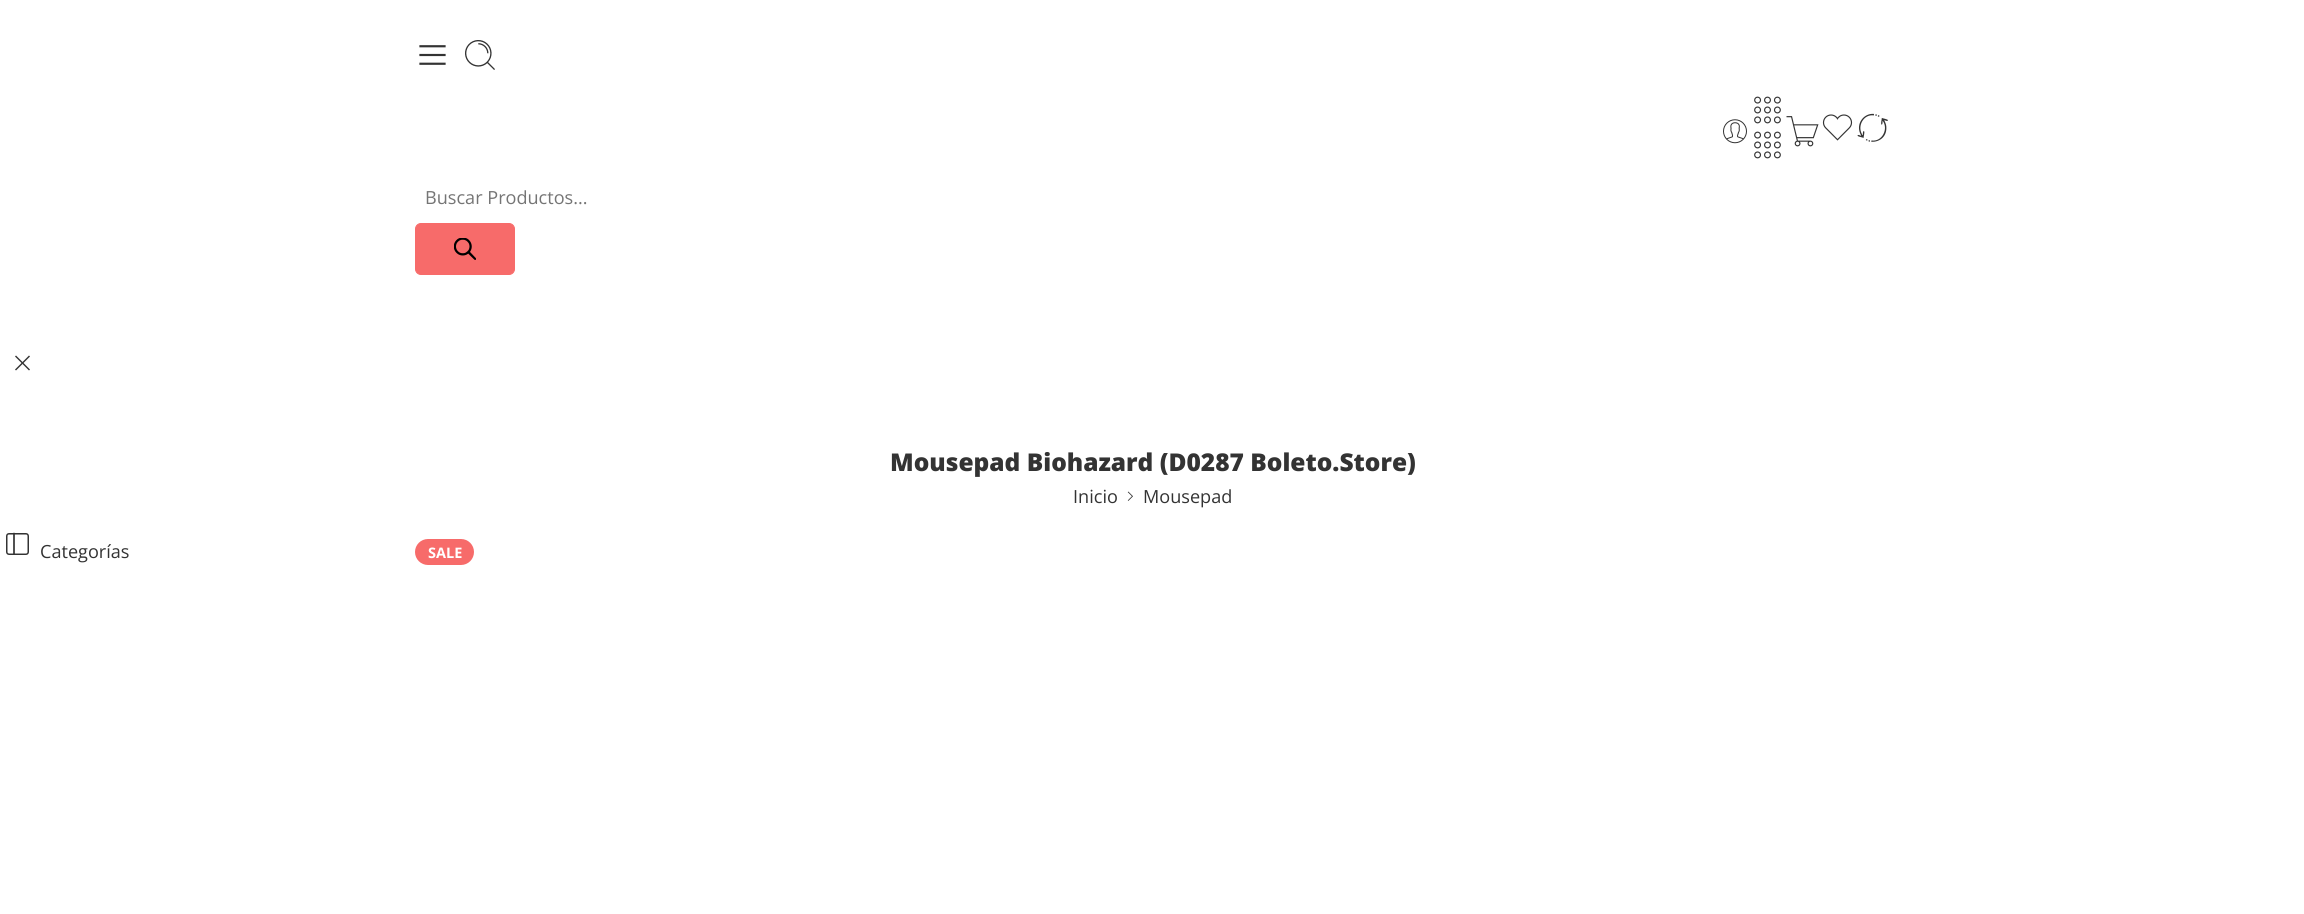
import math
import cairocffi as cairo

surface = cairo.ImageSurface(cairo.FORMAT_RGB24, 2304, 914)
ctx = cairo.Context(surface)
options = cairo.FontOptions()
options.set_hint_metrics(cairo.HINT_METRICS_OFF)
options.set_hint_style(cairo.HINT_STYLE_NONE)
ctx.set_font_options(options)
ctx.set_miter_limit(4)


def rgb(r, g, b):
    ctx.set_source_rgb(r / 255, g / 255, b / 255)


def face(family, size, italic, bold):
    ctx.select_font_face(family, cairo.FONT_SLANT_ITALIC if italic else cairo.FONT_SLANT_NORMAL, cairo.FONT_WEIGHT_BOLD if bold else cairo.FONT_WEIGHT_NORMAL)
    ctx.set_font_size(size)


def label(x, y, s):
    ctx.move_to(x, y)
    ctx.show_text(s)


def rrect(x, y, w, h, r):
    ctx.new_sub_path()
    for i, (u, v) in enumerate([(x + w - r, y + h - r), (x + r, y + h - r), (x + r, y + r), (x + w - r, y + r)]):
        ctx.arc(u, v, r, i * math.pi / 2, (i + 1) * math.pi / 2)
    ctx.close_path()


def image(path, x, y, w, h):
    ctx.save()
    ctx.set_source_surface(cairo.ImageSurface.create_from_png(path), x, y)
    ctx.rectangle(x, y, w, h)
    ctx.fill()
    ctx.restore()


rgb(255, 255, 255)
ctx.paint()
image('image0.png', 419, 45, 27, 20)
image('image1.png', 465, 40, 30, 30)
image('image2.png', 1723, 119, 24, 25)
image('image3.png', 1754, 96, 27, 28)
image('image3.png', 1754, 131, 27, 28)
image('image4.png', 1786, 116, 33, 31)
image('image5.png', 1822, 114, 31, 27)
image('image6.png', 1857, 113, 31, 29)
face('Open Sans', 18.1, 0, 0)
rgb(117, 117, 117)
label(425, 204, 'Buscar Productos...')
rgb(247, 107, 106)
rrect(415.5, 223.5, 99, 51, 5.5)
ctx.fill_preserve()
ctx.set_line_width(1)
ctx.stroke()
image('image7.png', 454, 238, 22, 22)
rgb(51, 51, 51)
ctx.new_path()
ctx.move_to(15, 369.5)
ctx.line_to(29, 355.5)
ctx.line_to(30, 356.5)
ctx.line_to(16, 370.5)
ctx.close_path()
ctx.fill()
ctx.new_path()
ctx.move_to(16, 355.5)
ctx.line_to(30, 369.5)
ctx.line_to(29, 370.5)
ctx.line_to(15, 356.5)
ctx.close_path()
ctx.fill()
face('Open Sans ExtraBold', 24.5, 0, 0)
label(890, 471, 'Mousepad Biohazard (D0287 Boleto.Store)')
face('Open Sans', 18.1, 0, 0)
label(1073, 503, 'Inicio')
image('image8.png', 1127, 491, 6, 10)
label(1143, 503, 'Mousepad')
label(40, 558, 'Categorías')
rrect(6.75, 533.75, 21.5, 20.5, 2.25)
ctx.set_line_width(1.5)
ctx.stroke()
ctx.new_path()
ctx.move_to(14, 533.5)
ctx.line_to(14, 554)
ctx.set_line_width(1.7)
ctx.set_line_cap(cairo.LINE_CAP_ROUND)
ctx.set_line_join(cairo.LINE_JOIN_ROUND)
ctx.stroke()
rgb(247, 107, 106)
rrect(415, 539, 59, 26, 13)
ctx.fill()
face('Open Sans', 14.5, 0, 1)
rgb(255, 255, 255)
label(428, 558, 'SALE')
surface.write_to_png('render.png')
